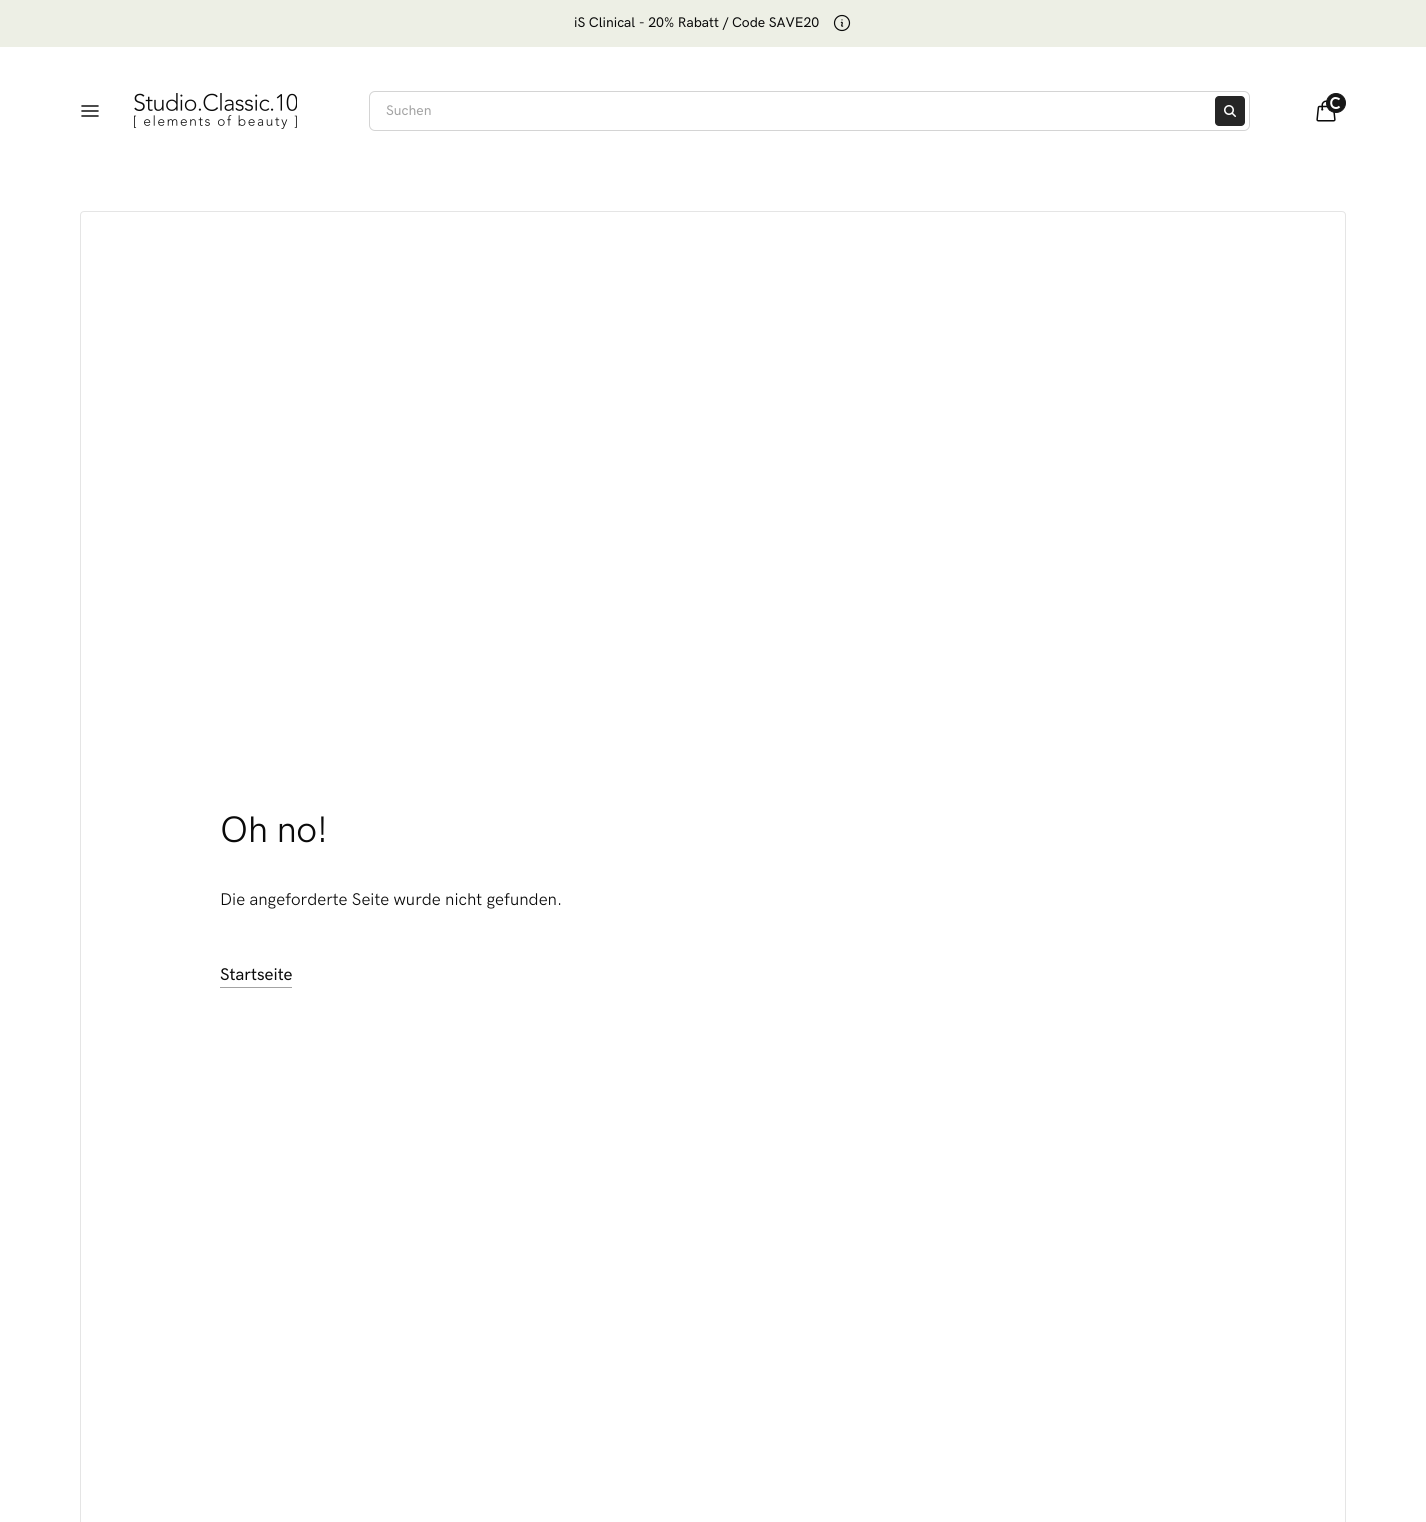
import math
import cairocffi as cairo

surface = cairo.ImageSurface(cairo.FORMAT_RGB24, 1426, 1522)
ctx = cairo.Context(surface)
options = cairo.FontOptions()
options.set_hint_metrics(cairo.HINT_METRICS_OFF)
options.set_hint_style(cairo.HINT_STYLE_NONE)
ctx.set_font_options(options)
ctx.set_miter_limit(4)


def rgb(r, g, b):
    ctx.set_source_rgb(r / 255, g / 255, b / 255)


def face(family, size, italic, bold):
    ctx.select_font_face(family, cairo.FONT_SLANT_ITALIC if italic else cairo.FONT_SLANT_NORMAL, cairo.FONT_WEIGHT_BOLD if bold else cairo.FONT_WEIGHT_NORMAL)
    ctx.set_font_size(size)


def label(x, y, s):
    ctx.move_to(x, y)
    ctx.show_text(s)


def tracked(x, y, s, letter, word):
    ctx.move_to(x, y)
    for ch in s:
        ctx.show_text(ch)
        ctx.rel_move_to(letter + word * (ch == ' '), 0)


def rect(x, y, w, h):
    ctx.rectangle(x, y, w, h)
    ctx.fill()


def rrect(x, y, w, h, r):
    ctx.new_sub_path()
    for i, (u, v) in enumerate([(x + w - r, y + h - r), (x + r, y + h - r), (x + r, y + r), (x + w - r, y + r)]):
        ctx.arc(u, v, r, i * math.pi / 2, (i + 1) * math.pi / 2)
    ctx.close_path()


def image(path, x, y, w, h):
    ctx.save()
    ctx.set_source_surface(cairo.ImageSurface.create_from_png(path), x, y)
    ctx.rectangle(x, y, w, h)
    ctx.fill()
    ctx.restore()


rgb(255, 255, 255)
ctx.paint()
rgb(237, 239, 229)
rect(0, 0, 1426, 47)
face('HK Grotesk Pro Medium', 14, 0, 0)
rgb(10, 10, 10)
label(574, 27, 'iS Clinical - 20% Rabatt / Code SAVE20')
image('image0.png', 833, 14, 18, 18)
ctx.new_path()
ctx.move_to(82, 106)
ctx.line_to(98, 106)
ctx.move_to(82, 111)
ctx.line_to(98, 111)
ctx.move_to(82, 116)
ctx.line_to(98, 116)
ctx.set_line_width(1.5)
ctx.set_line_cap(cairo.LINE_CAP_ROUND)
ctx.set_line_join(cairo.LINE_JOIN_ROUND)
ctx.stroke()
image('image1.png', 134, 93, 163, 36)
rrect(369.5, 91.5, 880, 39, 5.5)
rgb(212, 212, 212)
ctx.set_line_width(1)
ctx.set_line_cap(cairo.LINE_CAP_BUTT)
ctx.set_line_join(cairo.LINE_JOIN_MITER)
ctx.stroke()
rgb(163, 163, 163)
label(386, 115, 'Suchen')
rgb(38, 38, 38)
rrect(1215, 96, 30, 30, 4)
ctx.fill()
image('image2.png', 1224, 105, 12, 12)
image('image3.png', 1316, 100, 20, 22)
rgb(23, 23, 23)
ctx.arc(1336, 103, 9.5, 0, 2 * math.pi)
ctx.fill_preserve()
ctx.stroke()
ctx.new_path()
ctx.move_to(1339.5, 106.5)
ctx.curve_to(1338.5, 107.5, 1337.5, 108, 1336, 108)
ctx.curve_to(1330, 108, 1329.5, 99, 1335, 98)
ctx.curve_to(1336.5, 98, 1338.5, 98.5, 1339.5, 99.5)
rgb(255, 255, 255)
ctx.set_line_width(2)
ctx.stroke()
rrect(80.5, 211.5, 1265, 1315, 3.5)
rgb(229, 229, 229)
ctx.set_line_width(1)
ctx.stroke()
face('HK Grotesk Pro', 37, 0, 0)
rgb(10, 10, 10)
tracked(220, 842, 'Oh no!', -0.5, 0)
face('HK Grotesk Pro', 17, 0, 0)
label(220, 905, 'Die angeforderte Seite wurde nicht gefunden.')
face('HK Grotesk Pro Medium', 17, 0, 0)
label(220, 980, 'Startseite')
rgb(163, 163, 163)
rect(220, 987, 72, 1)
surface.write_to_png('render.png')
